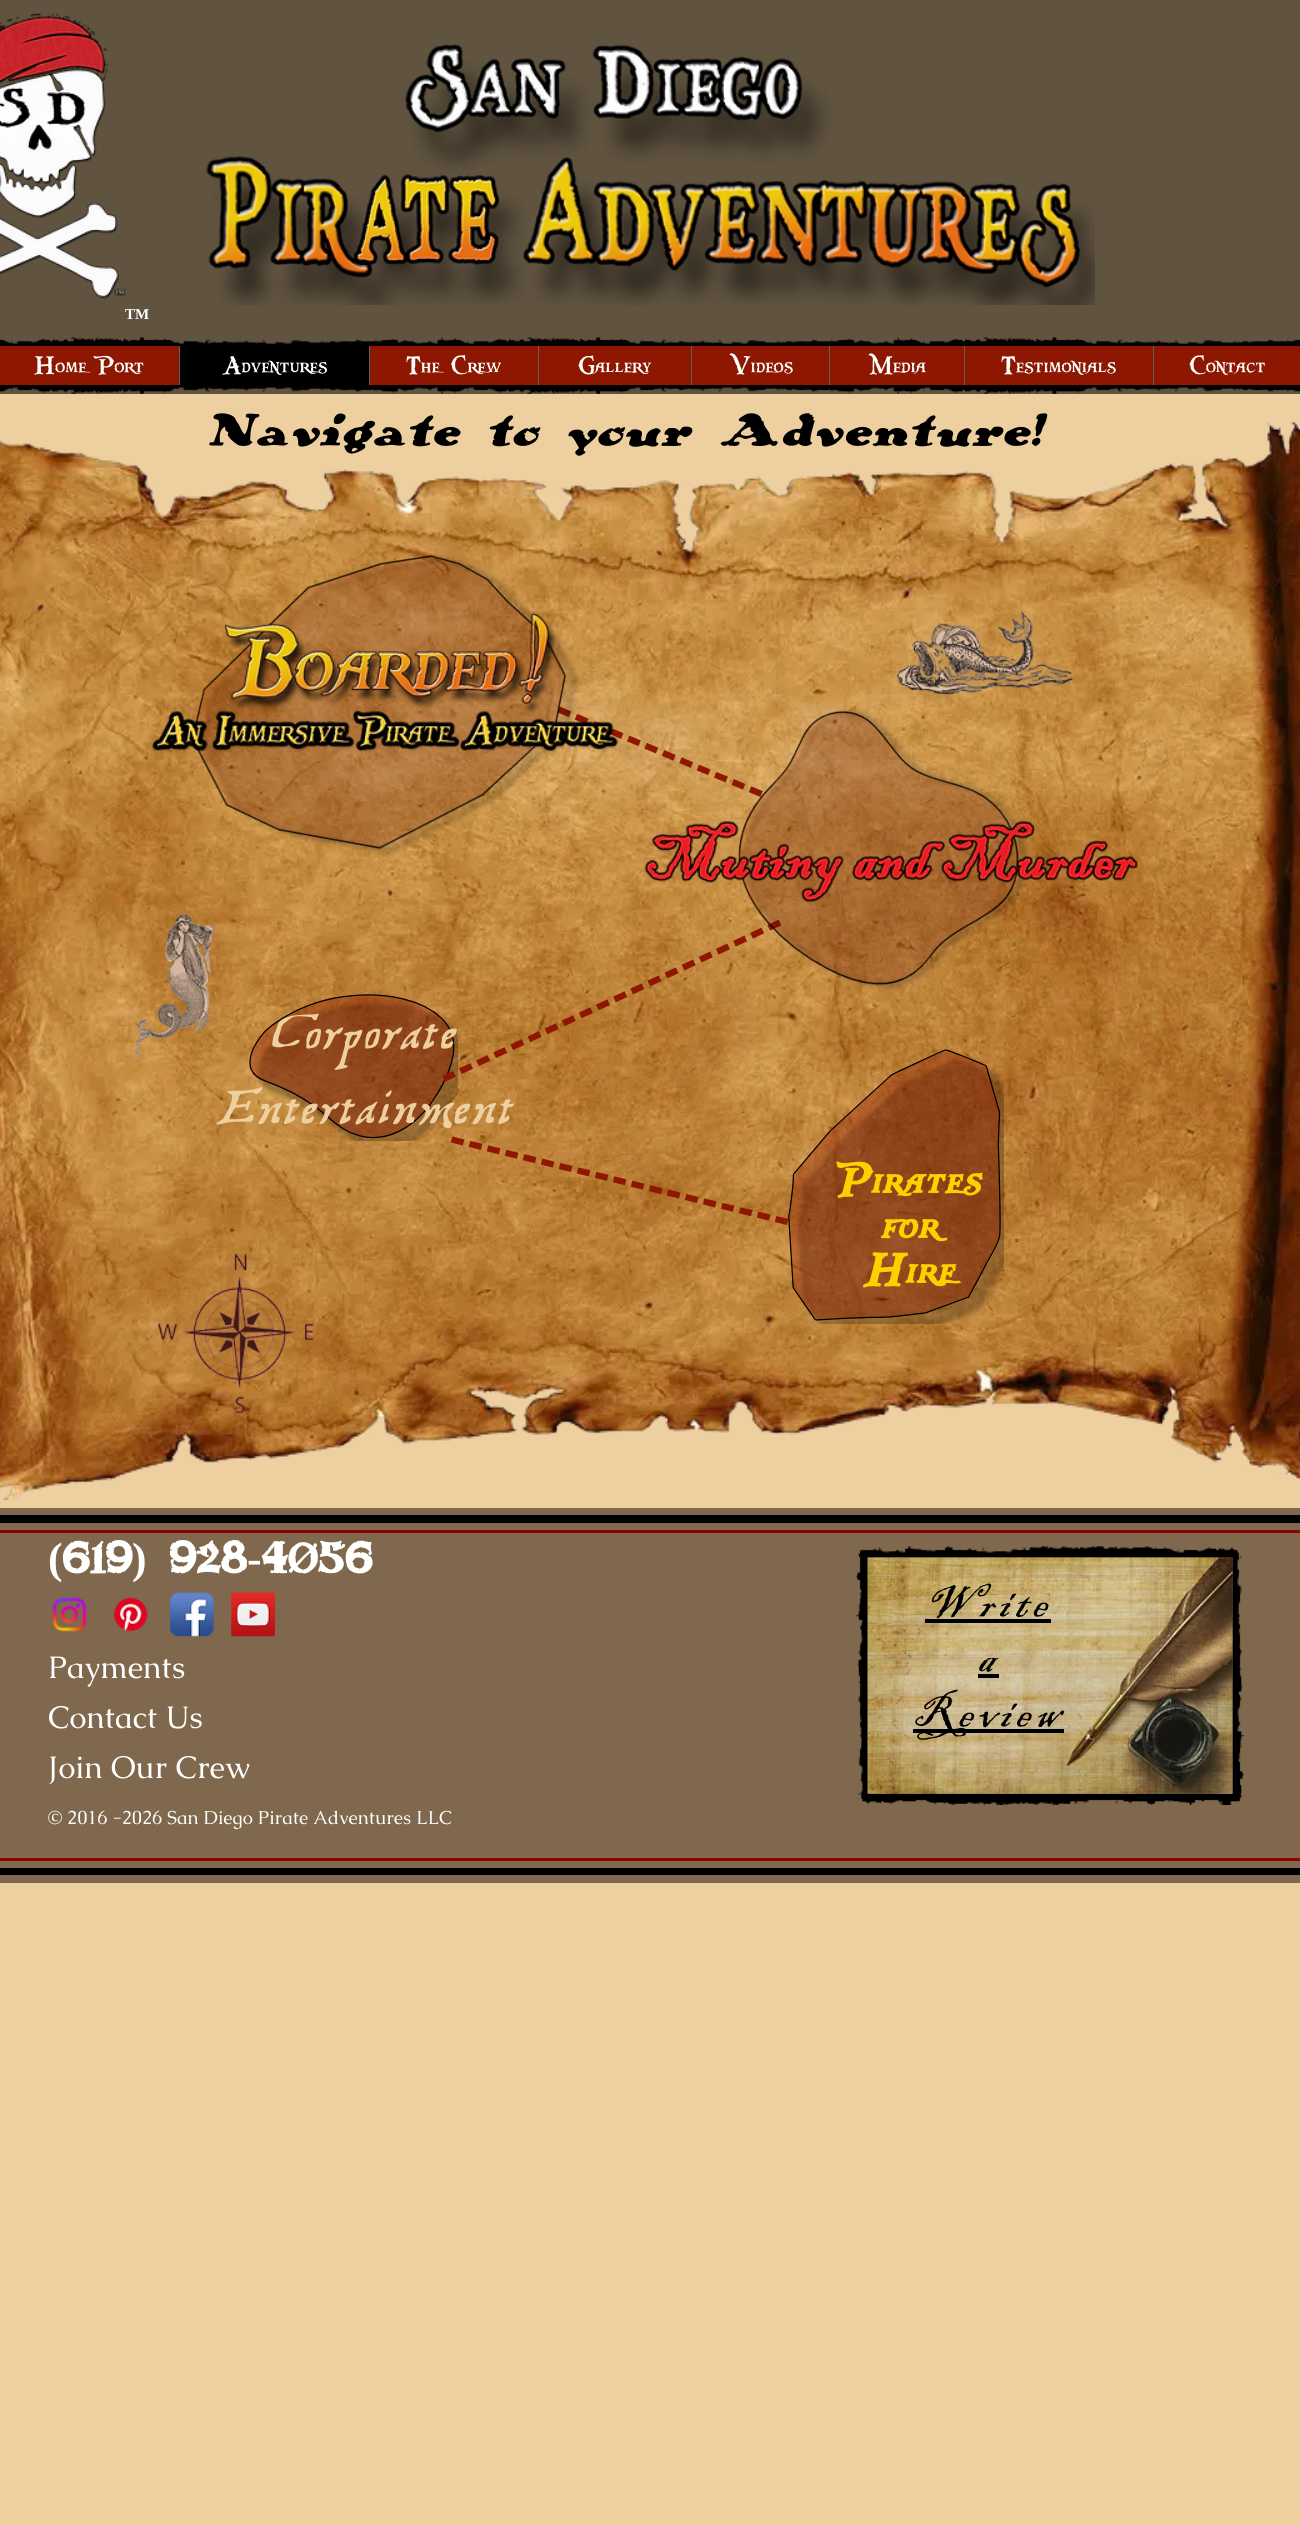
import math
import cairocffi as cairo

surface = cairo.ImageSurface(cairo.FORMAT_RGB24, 1300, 2525)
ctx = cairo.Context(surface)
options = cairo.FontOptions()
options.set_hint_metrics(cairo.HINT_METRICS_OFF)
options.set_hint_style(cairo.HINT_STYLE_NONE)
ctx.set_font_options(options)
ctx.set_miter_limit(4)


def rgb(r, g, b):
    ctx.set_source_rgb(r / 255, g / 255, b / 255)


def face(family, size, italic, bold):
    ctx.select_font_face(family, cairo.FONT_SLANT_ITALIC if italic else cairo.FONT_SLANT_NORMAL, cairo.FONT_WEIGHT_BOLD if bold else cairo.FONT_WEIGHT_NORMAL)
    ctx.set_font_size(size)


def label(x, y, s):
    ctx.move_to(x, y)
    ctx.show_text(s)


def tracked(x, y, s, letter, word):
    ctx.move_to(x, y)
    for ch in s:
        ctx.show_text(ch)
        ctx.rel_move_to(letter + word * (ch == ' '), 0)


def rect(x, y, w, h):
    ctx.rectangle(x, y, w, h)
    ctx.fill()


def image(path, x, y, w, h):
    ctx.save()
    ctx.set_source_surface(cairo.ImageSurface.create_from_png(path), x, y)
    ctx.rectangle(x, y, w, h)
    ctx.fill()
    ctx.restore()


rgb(238, 207, 160)
ctx.paint()
rgb(96, 83, 64)
rect(0, 0, 1300, 394)
image('image0.png', 0, 13, 126, 286)
image('image1.png', 206, 44, 889, 261)
face('Liberation Serif', 15, 0, 1)
rgb(255, 255, 254)
label(125, 319, 'TM')
image('image2.png', 0, 337, 1300, 9)
rgb(141, 23, 0)
rect(0, 346, 1300, 39)
face('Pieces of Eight', 27.5, 0, 0)
rgb(255, 255, 254)
label(34, 375, 'Home Port')
rgb(0, 0, 0)
rect(180, 346, 189, 39)
rgb(96, 96, 96)
rect(179, 346, 1, 39)
rgb(255, 255, 254)
label(222, 375, 'Adventures')
rgb(96, 96, 96)
rect(369, 346, 1, 39)
rgb(255, 255, 254)
label(406, 375, 'The Crew')
rgb(96, 96, 96)
rect(538, 346, 1, 39)
rgb(255, 255, 254)
label(578, 375, 'Gallery')
rgb(96, 96, 96)
rect(691, 346, 1, 39)
rgb(255, 255, 254)
label(729, 375, 'Videos')
rgb(96, 96, 96)
rect(829, 346, 1, 39)
rgb(255, 255, 254)
label(868, 375, 'Media')
rgb(96, 96, 96)
rect(964, 346, 1, 39)
rgb(255, 255, 254)
label(1001, 375, 'Testimonials')
rgb(96, 96, 96)
rect(1153, 346, 1, 39)
rgb(255, 255, 254)
label(1189, 375, 'Contact')
image('image3.png', 0, 385, 1300, 9)
image('image4.png', 0, 420, 1300, 1081)
face('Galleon', 43.75, 1, 0)
rgb(0, 0, 0)
label(204, 446, 'Navigate to your Adventure!')
ctx.new_path()
ctx.move_to(558.5, 709.5)
ctx.line_to(761.5, 794)
rgb(141, 23, 0)
ctx.set_line_width(6.2)
ctx.set_dash([12.5, 6.36])
ctx.stroke()
image('image5.png', 193, 554, 387, 302)
image('image6.png', 896, 611, 178, 85)
image('image7.png', 152, 614, 467, 140)
ctx.new_path()
ctx.move_to(451.5, 1139.5)
ctx.line_to(787.5, 1222)
ctx.set_dash([12.5, 6.04])
ctx.stroke()
image('image11.png', 249, 994, 209, 147)
ctx.new_path()
ctx.move_to(780, 922.5)
ctx.line_to(443.5, 1079)
ctx.set_line_width(6.3)
ctx.set_dash([12.5, 6.39])
ctx.stroke()
image('image8.png', 738, 709, 291, 281)
image('image9.png', 644, 821, 495, 82)
image('image10.png', 135, 913, 79, 145)
face('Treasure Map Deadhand', 62.5, 0, 0)
rgb(238, 207, 160)
label(271, 1050, 'Corporate')
label(215, 1125, 'Entertainment')
image('image12.png', 788, 1049, 216, 275)
face('Pieces of Eight', 50, 1, 1)
rgb(255, 208, 0)
tracked(835, 1198, 'Pirates', 2.5, 0)
tracked(879, 1243, 'for', 2.5, 0)
tracked(862, 1288, 'Hire', 2.5, 0)
image('image13.png', 157, 1253, 158, 161)
rgb(127, 104, 77)
rect(0, 1508, 1300, 375)
rgb(0, 0, 0)
rect(0, 1515, 1300, 8)
rect(0, 1868, 1300, 7)
rgb(139, 0, 0)
rect(0, 1530, 1300, 3)
rect(0, 1858, 1300, 3)
face('Liberation Serif', 43.75, 0, 1)
rgb(255, 255, 254)
label(48, 1573, '(')
face('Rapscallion', 43.75, 0, 1)
label(62, 1573, '619')
face('Liberation Serif', 43.75, 0, 1)
label(132, 1573, ')')
face('Rapscallion', 43.75, 0, 1)
label(169, 1573, '928')
face('Liberation Serif', 43.75, 0, 1)
label(247, 1573, '-')
face('Rapscallion', 43.75, 0, 1)
label(261, 1573, '4056')
image('image16.png', 862, 1552, 382, 253)
image('image14.png', 856, 1546, 382, 253)
image('image15.png', 867, 1557, 366, 237)
image('image17.png', 52, 1597, 35, 35)
image('image18.png', 113, 1597, 35, 35)
image('image19.png', 170, 1592, 44, 45)
image('image20.png', 231, 1592, 44, 45)
face('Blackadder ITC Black', 47.5, 1, 0)
rgb(0, 0, 0)
tracked(924, 1616, 'Write', 4.75, 0)
rect(925, 1619, 126, 4)
tracked(977, 1671, 'a', 4.75, 0)
rect(978, 1674, 21, 4)
rect(913, 1729, 151, 4)
tracked(912, 1726, 'Review', 4.75, 0)
face('Caudex', 31.25, 0, 0)
rgb(255, 255, 254)
label(48, 1678, 'Payments')
label(48, 1728, 'Contact Us')
label(48, 1778, 'Join Our Crew')
face('Caudex', 18.75, 0, 0)
label(48, 1824, '© 2016 -2026 San Diego Pirate Adventures LLC')
surface.write_to_png('render.png')
